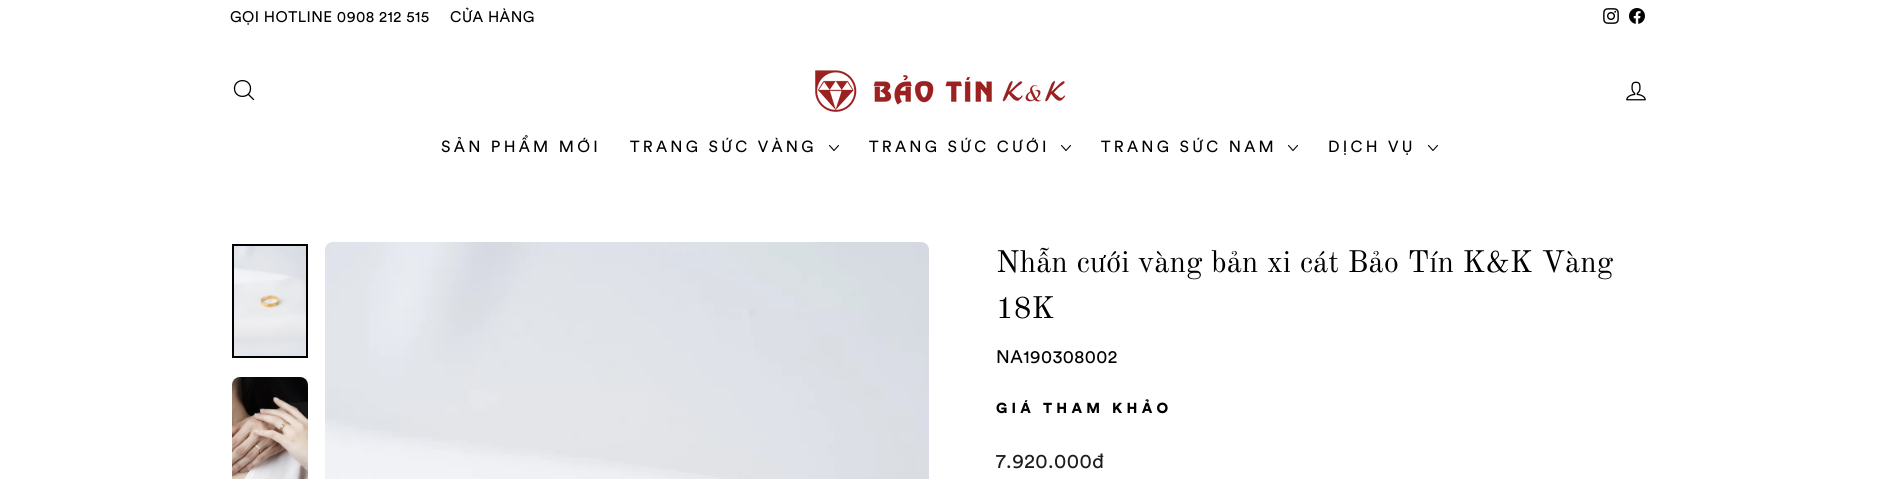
import math
import cairocffi as cairo

surface = cairo.ImageSurface(cairo.FORMAT_RGB24, 1879, 479)
ctx = cairo.Context(surface)
options = cairo.FontOptions()
options.set_hint_metrics(cairo.HINT_METRICS_OFF)
options.set_hint_style(cairo.HINT_STYLE_NONE)
ctx.set_font_options(options)
ctx.set_miter_limit(4)


def rgb(r, g, b):
    ctx.set_source_rgb(r / 255, g / 255, b / 255)


def face(family, size, italic, bold):
    ctx.select_font_face(family, cairo.FONT_SLANT_ITALIC if italic else cairo.FONT_SLANT_NORMAL, cairo.FONT_WEIGHT_BOLD if bold else cairo.FONT_WEIGHT_NORMAL)
    ctx.set_font_size(size)


def label(x, y, s):
    ctx.move_to(x, y)
    ctx.show_text(s)


def tracked(x, y, s, letter, word):
    ctx.move_to(x, y)
    for ch in s:
        ctx.show_text(ch)
        ctx.rel_move_to(letter + word * (ch == ' '), 0)


def image(path, x, y, w, h):
    ctx.save()
    ctx.set_source_surface(cairo.ImageSurface.create_from_png(path), x, y)
    ctx.rectangle(x, y, w, h)
    ctx.fill()
    ctx.restore()


rgb(255, 255, 255)
ctx.paint()
face('Circular', 15.25, 0, 0)
rgb(0, 0, 0)
tracked(230, 22, 'GỌI HOTLINE 0908 212 515', 0.45, 0)
tracked(450, 22, 'CỬA HÀNG', 0.45, 0)
image('image0.png', 1603, 8, 16, 16)
image('image1.png', 1629, 8, 16, 16)
ctx.new_path()
ctx.move_to(250.5, 88.5)
ctx.curve_to(250.5, 99, 234.5, 99, 234.5, 88.5)
ctx.curve_to(234.5, 78, 250.5, 78, 250.5, 88.5)
ctx.close_path()
ctx.move_to(253.5, 99.5)
ctx.line_to(248.5, 94.5)
ctx.set_line_width(1.3)
ctx.set_line_cap(cairo.LINE_CAP_ROUND)
ctx.set_line_join(cairo.LINE_JOIN_ROUND)
ctx.stroke()
image('image2.png', 815, 70, 250, 42)
image('image3.png', 1626, 81, 20, 20)
face('Circular', 16, 0, 0)
tracked(441, 152, 'SẢN PHẨM MỚI', 3.25, 0)
tracked(630, 152, 'TRANG SỨC VÀNG', 3.25, 0)
ctx.new_path()
ctx.move_to(829.5, 145.5)
ctx.line_to(834, 150.5)
ctx.line_to(838.5, 145.5)
ctx.set_line_width(1.1)
ctx.stroke()
tracked(869, 152, 'TRANG SỨC CƯỚI', 3.25, 0)
ctx.new_path()
ctx.move_to(1061.5, 145.5)
ctx.line_to(1066, 150.5)
ctx.line_to(1070.5, 145.5)
ctx.stroke()
tracked(1101, 152, 'TRANG SỨC NAM', 3.25, 0)
ctx.new_path()
ctx.move_to(1288.5, 145.5)
ctx.line_to(1293, 150.5)
ctx.line_to(1297.5, 145.5)
ctx.stroke()
tracked(1328, 152, 'DỊCH VỤ', 3.25, 0)
ctx.new_path()
ctx.move_to(1428.5, 145.5)
ctx.line_to(1433, 150.5)
ctx.line_to(1437.5, 145.5)
ctx.stroke()
image('image4.png', 234, 246, 72, 110)
ctx.rectangle(233, 245, 74, 112)
ctx.set_line_width(2)
ctx.set_line_cap(cairo.LINE_CAP_BUTT)
ctx.set_line_join(cairo.LINE_JOIN_MITER)
ctx.stroke()
image('image5.png', 232, 377, 76, 102)
image('image6.png', 325, 242, 604, 237)
face('Old Standard TT', 30.6, 0, 0)
label(996, 272, 'Nhẫn cưới vàng bản xi cát Bảo Tín K&K Vàng')
label(996, 318, '18K')
face('Circular', 18, 0, 0)
tracked(996, 363, 'NA190308002', 0.45, 0)
face('Circular Black', 14.4, 0, 0)
tracked(996, 413, 'GIÁ THAM KHẢO', 4.25, 0)
face('Circular', 20, 0, 0)
rgb(28, 29, 29)
tracked(996, 468, '7.920.000đ', 0.45, 0)
surface.write_to_png('render.png')
